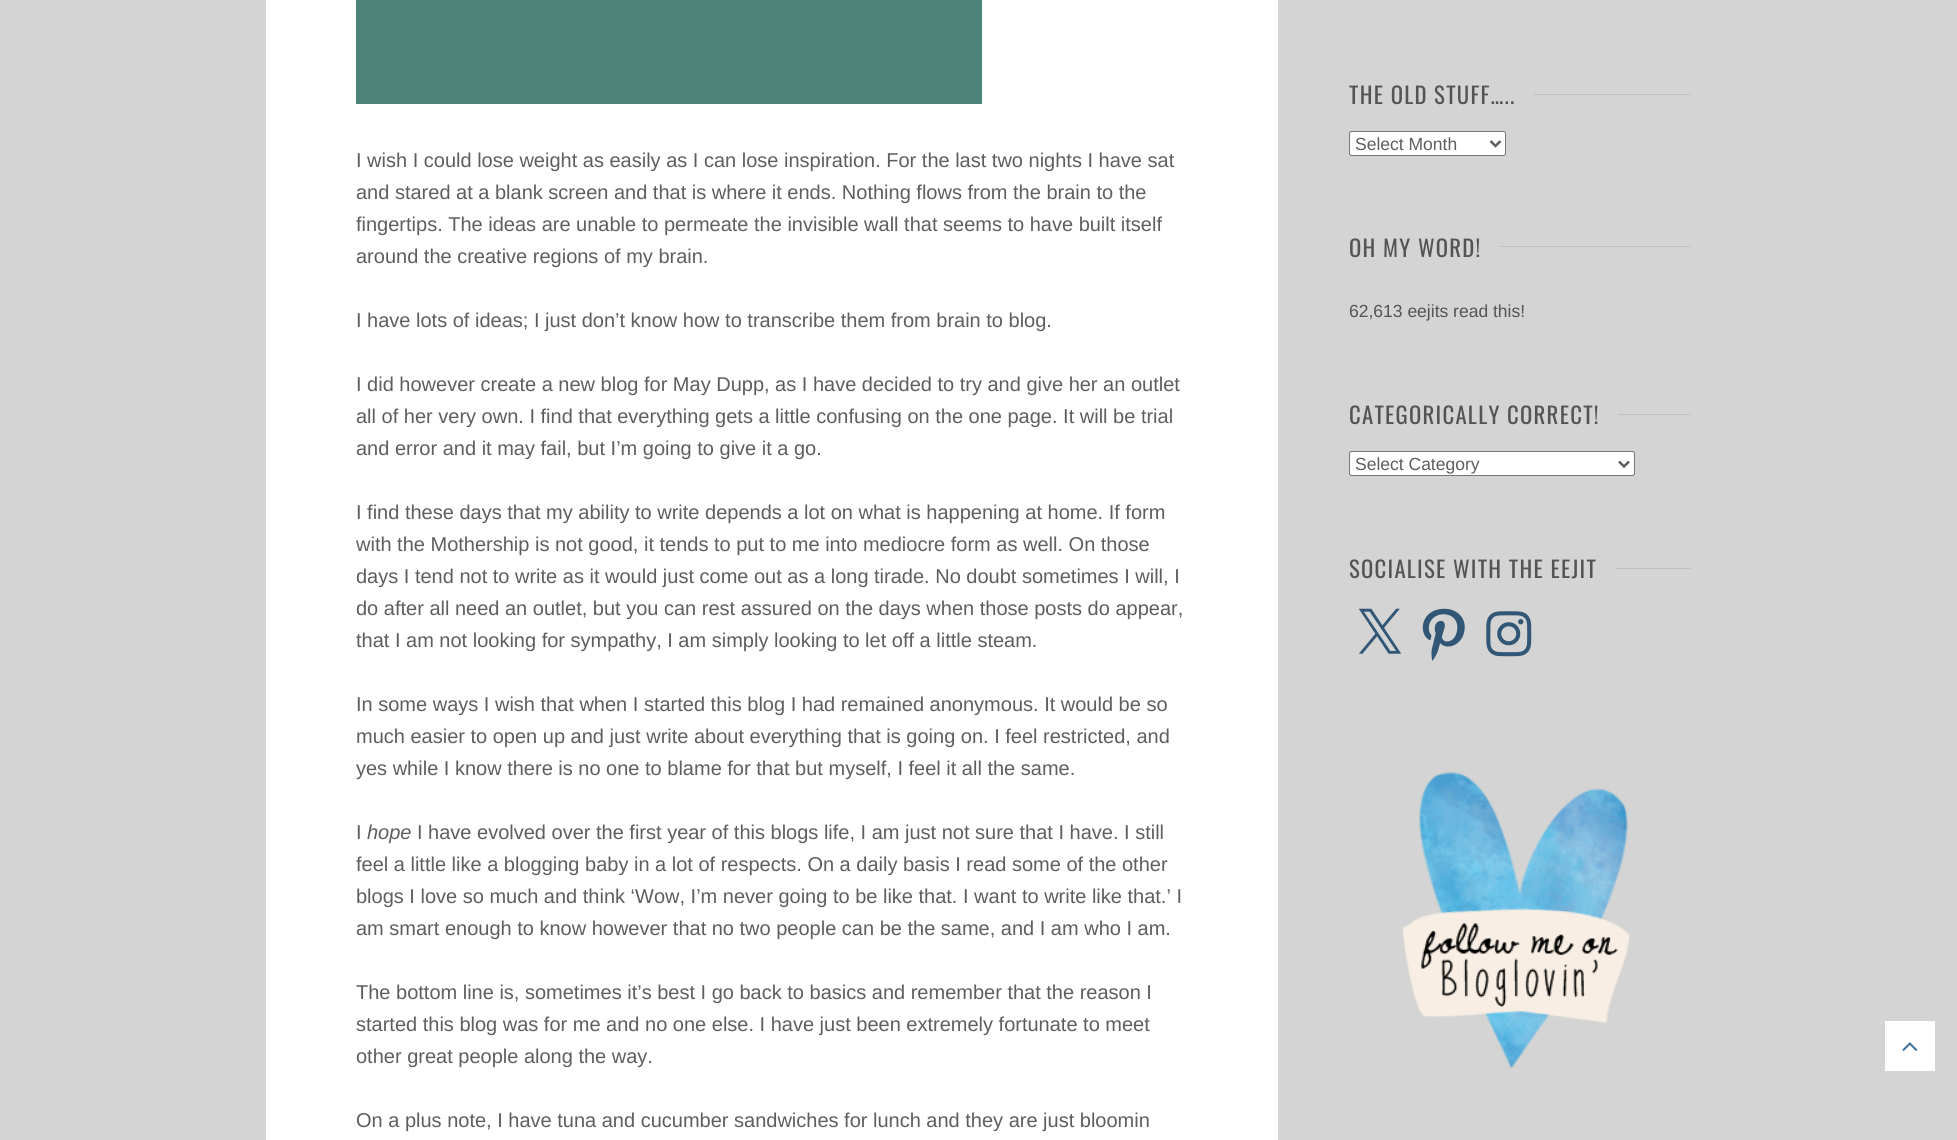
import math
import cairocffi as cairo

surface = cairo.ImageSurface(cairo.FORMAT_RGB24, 1957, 1140)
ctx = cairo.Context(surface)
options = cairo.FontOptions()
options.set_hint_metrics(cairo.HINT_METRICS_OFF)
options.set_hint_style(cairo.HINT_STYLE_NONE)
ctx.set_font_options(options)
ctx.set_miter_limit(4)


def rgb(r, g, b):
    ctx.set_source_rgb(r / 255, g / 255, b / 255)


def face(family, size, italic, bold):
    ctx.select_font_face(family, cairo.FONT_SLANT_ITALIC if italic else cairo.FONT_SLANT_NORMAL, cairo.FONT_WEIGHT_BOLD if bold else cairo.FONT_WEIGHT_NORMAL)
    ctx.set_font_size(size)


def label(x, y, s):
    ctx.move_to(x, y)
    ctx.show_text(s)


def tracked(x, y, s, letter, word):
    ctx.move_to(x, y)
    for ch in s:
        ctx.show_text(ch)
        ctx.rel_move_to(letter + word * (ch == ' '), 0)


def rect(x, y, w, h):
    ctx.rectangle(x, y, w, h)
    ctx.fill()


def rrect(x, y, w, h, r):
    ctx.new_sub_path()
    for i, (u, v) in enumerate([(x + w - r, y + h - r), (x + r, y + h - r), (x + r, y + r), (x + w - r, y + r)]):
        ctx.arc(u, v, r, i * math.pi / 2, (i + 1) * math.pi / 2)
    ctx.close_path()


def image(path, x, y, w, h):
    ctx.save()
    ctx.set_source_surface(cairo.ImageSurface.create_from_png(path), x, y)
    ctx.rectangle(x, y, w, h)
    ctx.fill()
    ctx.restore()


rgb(211, 212, 211)
ctx.paint()
rgb(255, 255, 255)
rect(266, 0, 1012, 1140)
rgb(76, 132, 122)
rect(356, 0, 626, 104)
face('Arimo', 20, 0, 0)
rgb(94, 94, 94)
label(356, 167, 'I wish I could lose weight as easily as I can lose inspiration. For the last two nights I have sat')
label(356, 199, 'and stared at a blank screen and that is where it ends. Nothing flows from the brain to the')
label(356, 231, 'fingertips. The ideas are unable to permeate the invisible wall that seems to have built itself')
label(356, 263, 'around the creative regions of my brain.')
label(356, 327, 'I have lots of ideas; I just don’t know how to transcribe them from brain to blog.')
label(356, 391, 'I did however create a new blog for May Dupp, as I have decided to try and give her an outlet')
label(356, 423, 'all of her very own. I find that everything gets a little confusing on the one page. It will be trial')
label(356, 455, 'and error and it may fail, but I’m going to give it a go.')
label(356, 519, 'I find these days that my ability to write depends a lot on what is happening at home. If form')
label(356, 551, 'with the Mothership is not good, it tends to put to me into mediocre form as well. On those')
label(356, 583, 'days I tend not to write as it would just come out as a long tirade. No doubt sometimes I will, I')
label(356, 615, 'do after all need an outlet, but you can rest assured on the days when those posts do appear,')
label(356, 647, 'that I am not looking for sympathy, I am simply looking to let off a little steam.')
label(356, 711, 'In some ways I wish that when I started this blog I had remained anonymous. It would be so')
label(356, 743, 'much easier to open up and just write about everything that is going on. I feel restricted, and')
label(356, 775, 'yes while I know there is no one to blame for that but myself, I feel it all the same.')
label(356, 839, 'I')
face('Arimo', 20, 1, 0)
label(367, 839, 'hope')
face('Arimo', 20, 0, 0)
label(417, 839, 'I have evolved over the first year of this blogs life, I am just not sure that I have. I still')
label(356, 871, 'feel a little like a blogging baby in a lot of respects. On a daily basis I read some of the other')
label(356, 903, 'blogs I love so much and think ‘Wow, I’m never going to be like that. I want to write like that.’ I')
label(356, 935, 'am smart enough to know however that no two people can be the same, and I am who I am.')
label(356, 999, 'The bottom line is, sometimes it’s best I go back to basics and remember that the reason I')
label(356, 1031, 'started this blog was for me and no one else. I have just been extremely fortunate to meet')
label(356, 1063, 'other great people along the way.')
label(356, 1127, 'On a plus note, I have tuna and cucumber sandwiches for lunch and they are just bloomin')
face('Oswald', 22.75, 0, 0)
rgb(84, 84, 84)
tracked(1349, 104, 'THE OLD STUFF…..', 1.25, 0)
rgb(190, 191, 190)
rect(1534, 94, 157, 1)
rgb(255, 255, 255)
rrect(1349.5, 131.5, 156, 24, 2)
ctx.fill_preserve()
rgb(118, 118, 118)
ctx.set_line_width(1)
ctx.stroke()
ctx.new_path()
ctx.move_to(1490.5, 141)
ctx.line_to(1495.5, 146)
ctx.line_to(1500.5, 141)
rgb(94, 94, 94)
ctx.set_line_width(2.5)
ctx.stroke()
face('Arimo', 17.5, 0, 0)
label(1355, 150, 'Select Month')
face('Oswald', 22.75, 0, 0)
rgb(84, 84, 84)
tracked(1349, 257, 'OH MY WORD!', 1.25, 0)
rgb(190, 191, 190)
rect(1500, 246, 191, 1)
face('Arimo', 17.5, 0, 0)
rgb(84, 84, 84)
label(1349, 317, '62,613 eejits read this!')
face('Oswald', 22.75, 0, 0)
tracked(1349, 424, 'CATEGORICALLY CORRECT!', 1.25, 0)
rgb(190, 191, 190)
rect(1618, 414, 73, 1)
rgb(255, 255, 255)
rrect(1349.5, 451.5, 285, 24, 2)
ctx.fill_preserve()
rgb(118, 118, 118)
ctx.set_line_width(1)
ctx.stroke()
ctx.new_path()
ctx.move_to(1619, 461.5)
ctx.line_to(1624, 466.5)
ctx.line_to(1629, 461.5)
rgb(94, 94, 94)
ctx.set_line_width(2.5)
ctx.stroke()
face('Arimo', 17.5, 0, 0)
label(1355, 470, 'Select Category')
face('Oswald', 22.75, 0, 0)
rgb(84, 84, 84)
tracked(1349, 578, 'SOCIALISE WITH THE EEJIT', 1.25, 0)
rgb(190, 191, 190)
rect(1615, 568, 76, 1)
image('image0.png', 1358, 608, 44, 46)
image('image1.png', 1422, 608, 43, 53)
image('image2.png', 1486, 611, 46, 46)
image('image3.png', 1402, 772, 228, 297)
rgb(255, 255, 255)
rect(1885, 1021, 50, 50)
image('image4.png', 1902, 1042, 16, 9)
surface.write_to_png('render.png')
